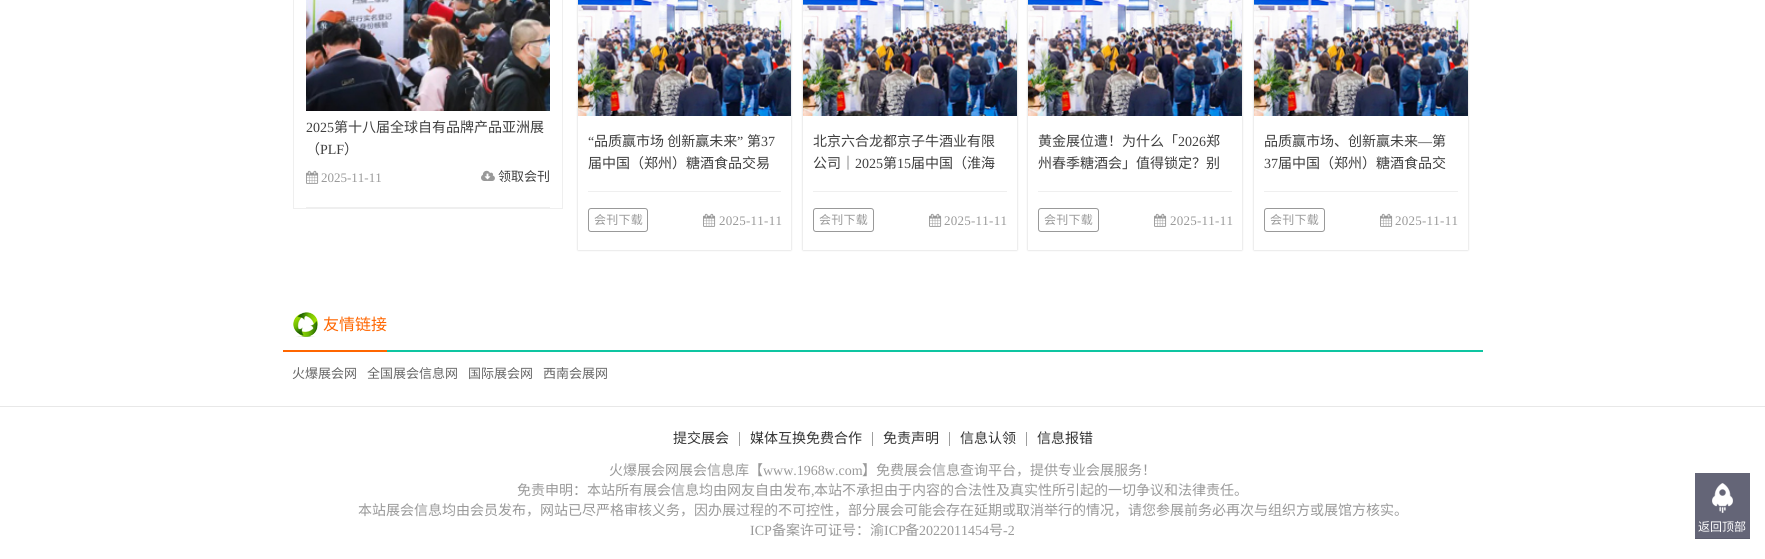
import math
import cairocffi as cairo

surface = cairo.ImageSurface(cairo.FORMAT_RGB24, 1765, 559)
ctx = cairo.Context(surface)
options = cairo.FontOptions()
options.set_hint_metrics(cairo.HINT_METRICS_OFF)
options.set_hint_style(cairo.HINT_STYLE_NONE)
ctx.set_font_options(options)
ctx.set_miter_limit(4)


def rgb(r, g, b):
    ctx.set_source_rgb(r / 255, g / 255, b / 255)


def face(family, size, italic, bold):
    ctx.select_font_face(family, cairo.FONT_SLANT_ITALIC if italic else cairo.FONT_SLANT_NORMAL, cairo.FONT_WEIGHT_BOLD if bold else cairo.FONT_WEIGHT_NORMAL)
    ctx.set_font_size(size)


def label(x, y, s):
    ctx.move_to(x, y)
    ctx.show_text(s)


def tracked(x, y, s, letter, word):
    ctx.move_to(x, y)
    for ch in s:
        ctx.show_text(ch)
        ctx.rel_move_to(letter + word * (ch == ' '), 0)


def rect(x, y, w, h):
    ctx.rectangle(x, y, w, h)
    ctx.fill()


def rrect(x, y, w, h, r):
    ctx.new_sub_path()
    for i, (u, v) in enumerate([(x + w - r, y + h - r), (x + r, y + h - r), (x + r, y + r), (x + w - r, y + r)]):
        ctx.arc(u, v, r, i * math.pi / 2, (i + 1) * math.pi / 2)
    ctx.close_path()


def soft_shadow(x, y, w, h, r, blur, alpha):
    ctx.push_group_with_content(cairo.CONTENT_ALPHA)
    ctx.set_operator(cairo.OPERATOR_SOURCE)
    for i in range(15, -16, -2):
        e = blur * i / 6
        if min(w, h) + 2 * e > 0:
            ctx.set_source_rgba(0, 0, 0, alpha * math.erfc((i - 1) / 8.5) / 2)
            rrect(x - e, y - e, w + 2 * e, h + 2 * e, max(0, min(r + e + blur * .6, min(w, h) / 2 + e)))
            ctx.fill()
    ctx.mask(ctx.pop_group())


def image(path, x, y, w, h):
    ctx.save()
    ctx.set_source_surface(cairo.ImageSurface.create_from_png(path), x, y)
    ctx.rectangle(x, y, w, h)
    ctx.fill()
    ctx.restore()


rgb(255, 255, 255)
ctx.paint()
rgb(239, 239, 239)
rect(562, 0, 1, 209)
rect(293, 208, 270, 1)
rect(293, 0, 1, 209)
rect(306, 207, 244, 1)
image('image0.png', 306, 0, 244, 111)
face('Liberation Serif', 14, 0, 0)
rgb(63, 63, 63)
label(306, 132, '2025')
face('Noto Sans CJK SC', 14, 0, 0)
label(334, 132, '第十八届全球自有品牌产品亚洲展')
label(306, 154, '（')
face('Liberation Serif', 14, 0, 0)
label(320, 154, 'PLF')
face('Noto Sans CJK SC', 14, 0, 0)
label(344, 154, '）')
image('image1.png', 306, 170, 13, 14)
face('Liberation Serif', 13, 0, 0)
rgb(153, 153, 153)
label(321, 182, '2025-11-11')
image('image2.png', 481, 170, 14, 11)
face('Noto Sans CJK SC', 13, 0, 0)
rgb(63, 63, 63)
label(498, 181, '领取会刊')
ctx.save()
ctx.set_fill_rule(cairo.FILL_RULE_EVEN_ODD)
ctx.new_path()
ctx.move_to(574, 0)
ctx.line_to(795, 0)
ctx.line_to(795, 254)
ctx.line_to(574, 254)
ctx.close_path()
ctx.move_to(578, -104)
ctx.line_to(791, -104)
ctx.line_to(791, 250)
ctx.line_to(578, 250)
ctx.close_path()
ctx.clip()
rgb(204, 204, 204)
soft_shadow(578, -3, 213, 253, 0, 1, 1)
ctx.restore()
image('image3.png', 578, 0, 213, 116)
face('Liberation Serif', 14, 0, 0)
label(588, 146, '“')
face('Noto Sans CJK SC', 14, 0, 0)
label(594, 146, '品质赢市场 创新赢未来')
face('Liberation Serif', 14, 0, 0)
label(737, 146, '”')
face('Noto Sans CJK SC', 14, 0, 0)
label(747, 146, '第')
face('Liberation Serif', 14, 0, 0)
label(761, 146, '37')
face('Noto Sans CJK SC', 14, 0, 0)
label(588, 168, '届中国（郑州）糖酒食品交易')
rgb(239, 239, 239)
rect(588, 191, 193, 1)
rrect(588.5, 208.5, 59, 23, 2.5)
rgb(153, 153, 153)
ctx.set_line_width(1)
ctx.stroke()
face('Noto Sans CJK SC', 12, 0, 0)
tracked(594, 224, '会刊下载', 0.25, 0)
image('image1.png', 703, 213, 13, 14)
face('Liberation Serif', 13, 0, 0)
tracked(719, 225, '2025-11-11', 0.25, 0)
ctx.save()
ctx.set_fill_rule(cairo.FILL_RULE_EVEN_ODD)
ctx.new_path()
ctx.move_to(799, 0)
ctx.line_to(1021, 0)
ctx.line_to(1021, 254)
ctx.line_to(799, 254)
ctx.close_path()
ctx.move_to(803, -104)
ctx.line_to(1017, -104)
ctx.line_to(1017, 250)
ctx.line_to(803, 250)
ctx.close_path()
ctx.clip()
rgb(204, 204, 204)
soft_shadow(803, -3, 214, 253, 0, 1, 1)
ctx.restore()
image('image4.png', 803, 0, 214, 116)
face('Noto Sans CJK SC', 14, 0, 0)
rgb(63, 63, 63)
label(813, 146, '北京六合龙都京子牛酒业有限')
label(813, 168, '公司｜')
face('Liberation Serif', 14, 0, 0)
label(855, 168, '2025')
face('Noto Sans CJK SC', 14, 0, 0)
label(883, 168, '第')
face('Liberation Serif', 14, 0, 0)
label(897, 168, '15')
face('Noto Sans CJK SC', 14, 0, 0)
label(911, 168, '届中国（淮海')
rgb(239, 239, 239)
rect(813, 191, 194, 1)
rrect(813.5, 208.5, 60, 23, 2.5)
rgb(153, 153, 153)
ctx.stroke()
face('Noto Sans CJK SC', 12, 0, 0)
tracked(819, 224, '会刊下载', 0.25, 0)
image('image1.png', 929, 213, 13, 14)
face('Liberation Serif', 13, 0, 0)
tracked(944, 225, '2025-11-11', 0.25, 0)
ctx.save()
ctx.set_fill_rule(cairo.FILL_RULE_EVEN_ODD)
ctx.new_path()
ctx.move_to(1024, 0)
ctx.line_to(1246, 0)
ctx.line_to(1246, 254)
ctx.line_to(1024, 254)
ctx.close_path()
ctx.move_to(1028, -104)
ctx.line_to(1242, -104)
ctx.line_to(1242, 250)
ctx.line_to(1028, 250)
ctx.close_path()
ctx.clip()
rgb(204, 204, 204)
soft_shadow(1028, -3, 214, 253, 0, 1, 1)
ctx.restore()
image('image5.png', 1028, 0, 214, 116)
face('Noto Sans CJK SC', 14, 0, 0)
rgb(63, 63, 63)
label(1038, 146, '黄金展位遭！为什么「')
face('Liberation Serif', 14, 0, 0)
label(1178, 146, '2026')
face('Noto Sans CJK SC', 14, 0, 0)
label(1206, 146, '郑')
label(1038, 168, '州春季糖酒会」值得锁定？别')
rgb(239, 239, 239)
rect(1038, 191, 194, 1)
rrect(1038.5, 208.5, 60, 23, 2.5)
rgb(153, 153, 153)
ctx.stroke()
face('Noto Sans CJK SC', 12, 0, 0)
tracked(1044, 224, '会刊下载', 0.25, 0)
image('image1.png', 1154, 213, 13, 14)
face('Liberation Serif', 13, 0, 0)
tracked(1170, 225, '2025-11-11', 0.25, 0)
ctx.save()
ctx.set_fill_rule(cairo.FILL_RULE_EVEN_ODD)
ctx.new_path()
ctx.move_to(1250, 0)
ctx.line_to(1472, 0)
ctx.line_to(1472, 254)
ctx.line_to(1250, 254)
ctx.close_path()
ctx.move_to(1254, -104)
ctx.line_to(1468, -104)
ctx.line_to(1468, 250)
ctx.line_to(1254, 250)
ctx.close_path()
ctx.clip()
rgb(204, 204, 204)
soft_shadow(1254, -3, 214, 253, 0, 1, 1)
ctx.restore()
image('image5.png', 1254, 0, 214, 116)
face('Noto Sans CJK SC', 14, 0, 0)
rgb(63, 63, 63)
label(1264, 146, '品质赢市场、创新赢未来')
face('Liberation Serif', 14, 0, 0)
label(1418, 146, '—')
face('Noto Sans CJK SC', 14, 0, 0)
label(1432, 146, '第')
face('Liberation Serif', 14, 0, 0)
label(1264, 168, '37')
face('Noto Sans CJK SC', 14, 0, 0)
label(1278, 168, '届中国（郑州）糖酒食品交')
rgb(239, 239, 239)
rect(1264, 191, 194, 1)
rrect(1264.5, 208.5, 60, 23, 2.5)
rgb(153, 153, 153)
ctx.stroke()
face('Noto Sans CJK SC', 12, 0, 0)
tracked(1270, 224, '会刊下载', 0.25, 0)
image('image1.png', 1380, 213, 13, 14)
face('Liberation Serif', 13, 0, 0)
tracked(1395, 225, '2025-11-11', 0.25, 0)
rgb(14, 197, 161)
rect(387, 350, 1096, 2)
image('image6.png', 293, 312, 25, 25)
rgb(255, 102, 0)
rect(283, 350, 104, 2)
face('Noto Sans CJK SC', 16, 0, 0)
label(323, 330, '友情链接')
face('Noto Sans CJK SC', 13, 0, 0)
rgb(102, 102, 102)
label(292, 378, '火爆展会网')
label(367, 378, '全国展会信息网')
label(468, 378, '国际展会网')
label(543, 378, '西南会展网')
rgb(232, 232, 232)
rect(0, 406, 1765, 1)
face('Noto Sans CJK SC', 14, 0, 0)
rgb(51, 51, 51)
label(673, 443, '提交展会')
rgb(158, 158, 158)
rect(739, 432, 1, 14)
rgb(51, 51, 51)
label(750, 443, '媒体互换免费合作')
rgb(158, 158, 158)
rect(872, 432, 1, 14)
rgb(51, 51, 51)
label(883, 443, '免责声明')
rgb(158, 158, 158)
rect(949, 432, 1, 14)
rgb(51, 51, 51)
label(960, 443, '信息认领')
rgb(158, 158, 158)
rect(1026, 432, 1, 14)
rgb(51, 51, 51)
label(1037, 443, '信息报错')
rgb(153, 153, 153)
label(609, 475, '火爆展会网展会信息库【')
face('Liberation Serif', 14, 0, 0)
label(763, 475, 'www.1968w.com')
face('Noto Sans CJK SC', 14, 0, 0)
label(862, 475, '】免费展会信息查询平台，提供专业会展服务！')
label(517, 495, '免责申明：本站所有展会信息均由网友自由发布')
face('Liberation Serif', 14, 0, 0)
label(811, 495, ',')
face('Noto Sans CJK SC', 14, 0, 0)
label(814, 495, '本站不承担由于内容的合法性及真实性所引起的一切争议和法律责任。')
label(358, 515, '本站展会信息均由会员发布，网站已尽严格审核义务，因办展过程的不可控性，部分展会可能会存在延期或取消举行的情况，请您参展前务必再次与组织方或展馆方核实。')
face('Liberation Serif', 14, 0, 0)
label(750, 535, 'ICP')
face('Noto Sans CJK SC', 14, 0, 0)
label(772, 535, '备案许可证号：渝')
face('Liberation Serif', 14, 0, 0)
label(884, 535, 'ICP')
face('Noto Sans CJK SC', 14, 0, 0)
label(905, 535, '备')
face('Liberation Serif', 14, 0, 0)
label(919, 535, '2022011454')
face('Noto Sans CJK SC', 14, 0, 0)
label(989, 535, '号')
face('Liberation Serif', 14, 0, 0)
label(1003, 535, '-2')
rgb(100, 101, 119)
rect(1695, 473, 55, 65)
rgb(92, 93, 110)
rect(1695, 538, 55, 1)
image('image7.png', 1712, 483, 21, 30)
face('Noto Sans CJK SC', 12, 0, 0)
rgb(255, 255, 255)
label(1698, 531, '返回顶部')
surface.write_to_png('render.png')
